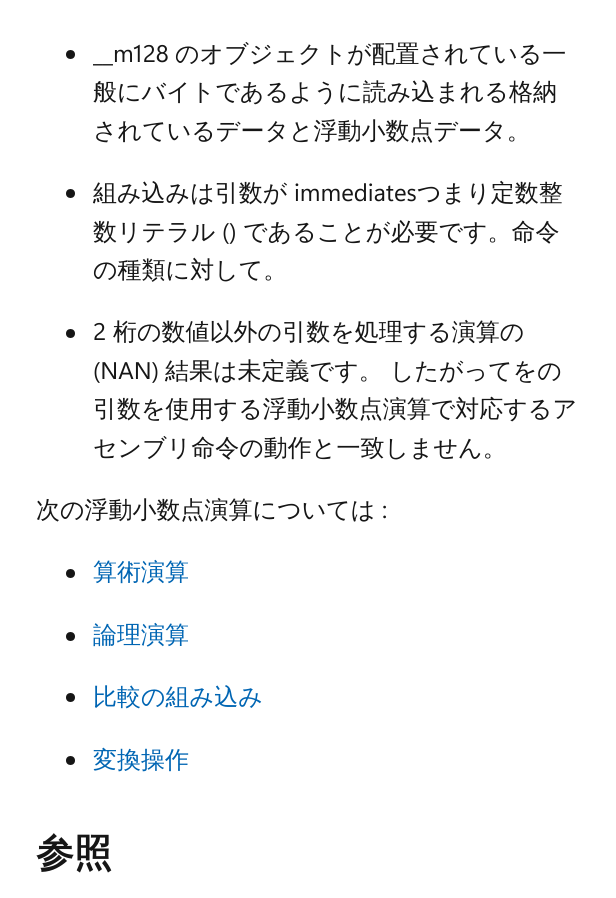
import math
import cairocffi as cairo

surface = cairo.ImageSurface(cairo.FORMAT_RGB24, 616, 898)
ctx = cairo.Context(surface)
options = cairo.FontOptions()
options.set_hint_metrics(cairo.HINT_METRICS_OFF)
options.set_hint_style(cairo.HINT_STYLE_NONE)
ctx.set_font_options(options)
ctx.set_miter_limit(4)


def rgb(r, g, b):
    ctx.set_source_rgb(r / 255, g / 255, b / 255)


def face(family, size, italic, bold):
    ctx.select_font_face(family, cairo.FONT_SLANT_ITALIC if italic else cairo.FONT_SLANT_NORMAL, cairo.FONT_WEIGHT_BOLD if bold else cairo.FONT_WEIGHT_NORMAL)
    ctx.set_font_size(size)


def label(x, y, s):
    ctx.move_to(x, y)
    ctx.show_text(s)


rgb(255, 255, 255)
ctx.paint()
rgb(22, 22, 22)
ctx.arc(70.5, 54.5, 4.5, 0, 2 * math.pi)
ctx.fill()
face('Segoe UI', 24, 0, 0)
label(93, 62, '__m128')
face('WenQuanYi Zen Hei Medium', 24, 0, 0)
label(175, 62, 'のオブジェクトが配置されている一')
label(93, 100, '般にバイトであるように読み込まれる格納')
label(93, 139, 'されているデータと浮動小数点データ。')
ctx.new_path()
ctx.arc(70.5, 193.5, 4.5, 0, 2 * math.pi)
ctx.fill()
label(93, 201, '組み込みは引数が')
face('Segoe UI', 24, 0, 0)
label(294, 201, 'immediates')
face('WenQuanYi Zen Hei Medium', 24, 0, 0)
label(417, 201, 'つまり定数整')
label(93, 240, '数リテラル')
face('Segoe UI', 24, 0, 0)
label(222, 240, '()')
face('WenQuanYi Zen Hei Medium', 24, 0, 0)
label(243, 240, 'であることが必要です。命令')
label(93, 278, 'の種類に対して。')
ctx.new_path()
ctx.arc(70.5, 333.5, 4.5, 0, 2 * math.pi)
ctx.fill()
face('Segoe UI', 24, 0, 0)
label(93, 340, '2')
face('WenQuanYi Zen Hei Medium', 24, 0, 0)
label(113, 340, '桁の数値以外の引数を処理する演算の')
face('Segoe UI', 24, 0, 0)
label(93, 379, '(NAN)')
face('WenQuanYi Zen Hei Medium', 24, 0, 0)
label(165, 379, '結果は未定義です。 したがってをの')
label(93, 417, '引数を使用する浮動小数点演算で対応するア')
label(93, 456, 'センブリ命令の動作と一致しません。')
label(36, 518, '次の浮動小数点演算については')
face('Segoe UI', 24, 0, 0)
label(382, 518, ':')
ctx.new_path()
ctx.arc(70.5, 573.5, 4.5, 0, 2 * math.pi)
ctx.fill()
face('WenQuanYi Zen Hei Medium', 24, 0, 0)
rgb(0, 101, 179)
label(93, 580, '算術演算')
rgb(22, 22, 22)
ctx.new_path()
ctx.arc(70.5, 636.5, 4.5, 0, 2 * math.pi)
ctx.fill()
rgb(0, 101, 179)
label(93, 643, '論理演算')
rgb(22, 22, 22)
ctx.new_path()
ctx.arc(70.5, 697.5, 4.5, 0, 2 * math.pi)
ctx.fill()
rgb(0, 101, 179)
label(93, 705, '比較の組み込み')
rgb(22, 22, 22)
ctx.new_path()
ctx.arc(70.5, 760.5, 4.5, 0, 2 * math.pi)
ctx.fill()
rgb(0, 101, 179)
label(93, 768, '変換操作')
face('WenQuanYi Zen Hei', 38, 0, 1)
rgb(22, 22, 22)
label(36, 866, '参照')
surface.write_to_png('render.png')
